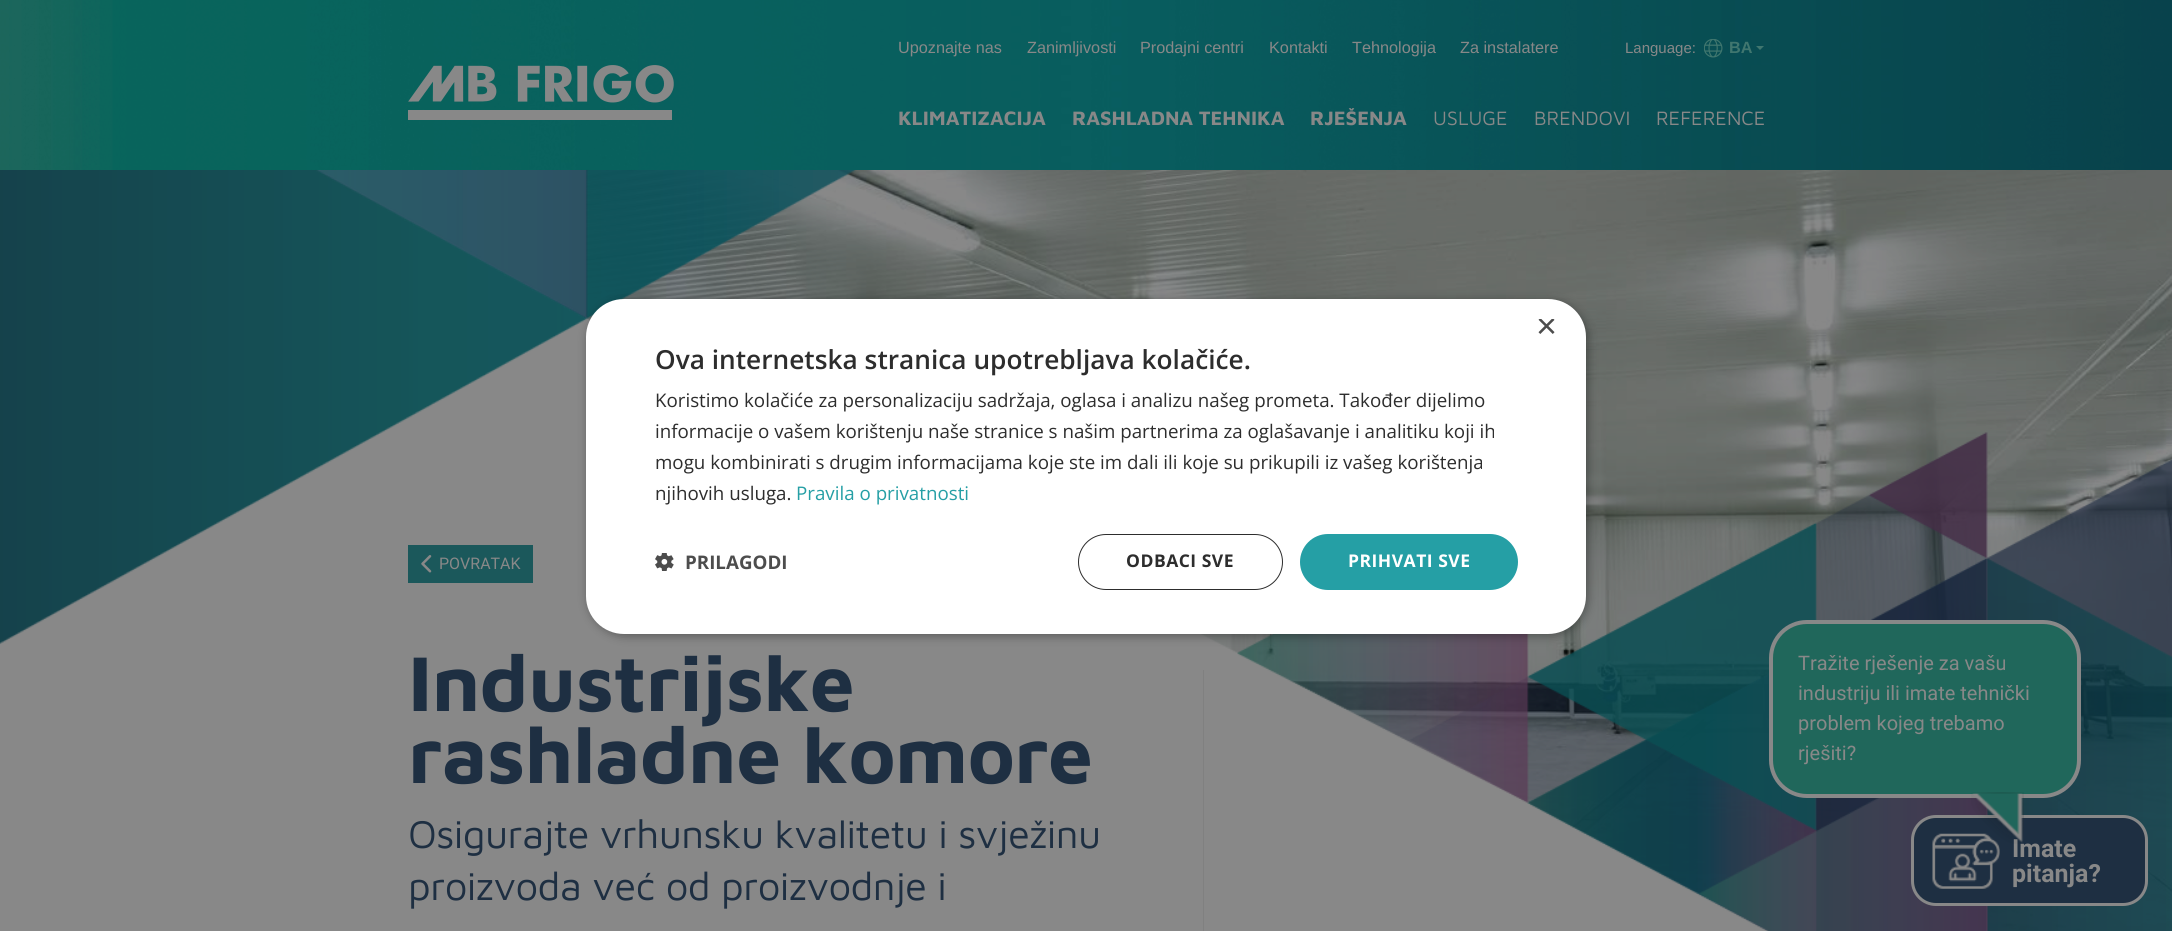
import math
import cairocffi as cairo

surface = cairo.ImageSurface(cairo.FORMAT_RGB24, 2172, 931)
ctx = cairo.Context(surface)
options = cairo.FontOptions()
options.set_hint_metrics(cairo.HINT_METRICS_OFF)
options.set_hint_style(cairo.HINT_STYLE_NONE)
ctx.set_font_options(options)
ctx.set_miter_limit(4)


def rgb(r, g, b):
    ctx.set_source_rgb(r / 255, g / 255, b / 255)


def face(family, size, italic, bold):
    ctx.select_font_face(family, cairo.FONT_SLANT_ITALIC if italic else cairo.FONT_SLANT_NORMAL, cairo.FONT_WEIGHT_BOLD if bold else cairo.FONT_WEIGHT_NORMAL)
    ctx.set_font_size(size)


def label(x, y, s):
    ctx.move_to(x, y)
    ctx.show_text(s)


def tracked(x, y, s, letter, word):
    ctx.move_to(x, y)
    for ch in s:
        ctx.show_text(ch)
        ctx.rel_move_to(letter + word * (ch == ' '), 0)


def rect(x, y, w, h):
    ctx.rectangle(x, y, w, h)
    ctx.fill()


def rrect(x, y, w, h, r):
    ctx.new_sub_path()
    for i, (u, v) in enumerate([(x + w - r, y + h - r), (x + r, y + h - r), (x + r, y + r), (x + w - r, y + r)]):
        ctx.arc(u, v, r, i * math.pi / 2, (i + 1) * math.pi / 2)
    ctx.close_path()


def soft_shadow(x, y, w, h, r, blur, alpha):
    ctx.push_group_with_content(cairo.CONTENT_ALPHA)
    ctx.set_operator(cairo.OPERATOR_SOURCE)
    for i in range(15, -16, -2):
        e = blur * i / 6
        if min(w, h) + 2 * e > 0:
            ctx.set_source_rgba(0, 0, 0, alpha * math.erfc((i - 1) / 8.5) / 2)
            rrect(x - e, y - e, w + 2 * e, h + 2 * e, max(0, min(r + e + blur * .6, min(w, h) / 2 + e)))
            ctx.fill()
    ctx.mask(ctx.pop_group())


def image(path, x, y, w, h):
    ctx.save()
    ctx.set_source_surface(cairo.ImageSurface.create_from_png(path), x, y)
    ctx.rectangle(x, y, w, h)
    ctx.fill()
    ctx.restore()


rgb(255, 255, 255)
ctx.paint()
image('image0.png', 0, 0, 2172, 170)
image('image1.png', 408, 65, 266, 55)
face('Liberation Sans', 16.25, 0, 0)
rgb(136, 136, 136)
label(898, 53, 'Upoznajte nas')
label(1027, 53, 'Zanimljivosti')
label(1140, 53, 'Prodajni centri')
label(1269, 53, 'Kontakti')
label(1352, 53, 'Tehnologija')
label(1460, 53, 'Za instalatere')
face('Liberation Sans', 15, 0, 0)
label(1625, 53, 'Language:')
image('image2.png', 1704, 39, 19, 19)
face('Liberation Sans', 16.25, 0, 1)
rgb(64, 118, 111)
label(1729, 53, 'BA')
ctx.new_path()
ctx.move_to(1756, 46)
ctx.line_to(1764, 46)
ctx.line_to(1760, 50)
ctx.close_path()
ctx.fill()
face('Maven Pro', 20, 0, 1)
rgb(136, 136, 136)
label(898, 125, 'KLIMATIZACIJA')
label(1072, 125, 'RASHLADNA TEHNIKA')
label(1310, 125, 'RJEŠENJA')
face('Maven Pro', 20, 0, 0)
label(1433, 125, 'USLUGE')
label(1534, 125, 'BRENDOVI')
label(1656, 125, 'REFERENCE')
image('image4.png', 586, 170, 1586, 761)
image('image3.png', 0, 170, 2172, 761)
rgb(27, 88, 91)
rect(408, 545, 125, 38)
image('image5.png', 421, 555, 11, 18)
face('Roboto', 16, 0, 0)
rgb(136, 136, 136)
label(439, 569, 'POVRATAK')
face('Maven Pro', 80, 0, 1)
rgb(30, 47, 66)
tracked(408, 711, 'Industrijske', -0.6, 0)
tracked(408, 783, 'rashladne komore', -0.6, 0)
face('Maven Pro', 40, 0, 0)
tracked(408, 848, 'Osigurajte vrhunsku kvalitetu i svježinu', -0.6, 0)
tracked(408, 900, 'proizvoda već od proizvodnje i', -0.6, 0)
rgb(128, 128, 128)
rect(1203, 670, 1, 261)
rgb(32, 103, 91)
rrect(1771, 622, 308, 174, 36)
ctx.fill_preserve()
rgb(136, 136, 136)
ctx.set_line_width(4)
ctx.stroke()
face('Roboto', 20, 0, 0)
label(1798, 670, 'Tražite rješenje za vašu')
label(1798, 700, 'industriju ili imate tehnički')
label(1798, 730, 'problem kojeg trebamo')
label(1798, 760, 'rješiti?')
rgb(30, 47, 66)
rrect(1912.5, 816.5, 234, 88, 23.5)
ctx.fill_preserve()
rgb(136, 136, 136)
ctx.set_line_width(3)
ctx.stroke()
image('image7.png', 1932, 833, 68, 56)
face('Roboto', 25, 0, 1)
label(2012, 857, 'Imate')
image('image6.png', 1971, 792, 53, 52)
label(2012, 882, 'pitanja?')
rgb(0, 0, 0)
soft_shadow(588, 301, 1000, 335, 38, 5, 0.35)
rgb(255, 255, 255)
rrect(586, 299, 1000, 335, 38)
ctx.fill()
ctx.save()
ctx.rectangle(1536, 319, 19, 19)
ctx.clip()
face('Liberation Sans', 36, 0, 0)
rgb(77, 77, 77)
label(1536, 338, '×')
ctx.restore()
face('Open Sans SemiBold', 26.25, 0, 0)
rgb(45, 45, 45)
label(655, 369, 'Ova internetska stranica upotrebljava kolačiće.')
face('Open Sans', 18.75, 0, 0)
label(655, 407, 'Koristimo kolačiće za personalizaciju sadržaja, oglasa i analizu našeg prometa. Također dijelimo')
label(655, 438, 'informacije o vašem korištenju naše stranice s našim partnerima za oglašavanje i analitiku koji ih')
label(655, 469, 'mogu kombinirati s drugim informacijama koje ste im dali ili koje su prikupili iz vašeg korištenja')
label(655, 500, 'njihovih usluga.')
rgb(37, 159, 165)
label(796, 500, 'Pravila o privatnosti')
image('image8.png', 655, 553, 19, 18)
face('Open Sans', 18.75, 0, 1)
rgb(77, 77, 77)
label(685, 569, 'PRILAGODI')
rrect(1078.5, 534.5, 204, 55, 27.5)
rgb(45, 45, 45)
ctx.set_line_width(1)
ctx.stroke()
face('Open Sans', 17.5, 0, 1)
tracked(1126, 567, 'ODBACI SVE', 0.5, 0)
rgb(37, 159, 165)
rrect(1300, 534, 218, 56, 28)
ctx.fill()
rgb(255, 255, 255)
tracked(1348, 567, 'PRIHVATI SVE', 0.5, 0)
surface.write_to_png('render.png')
